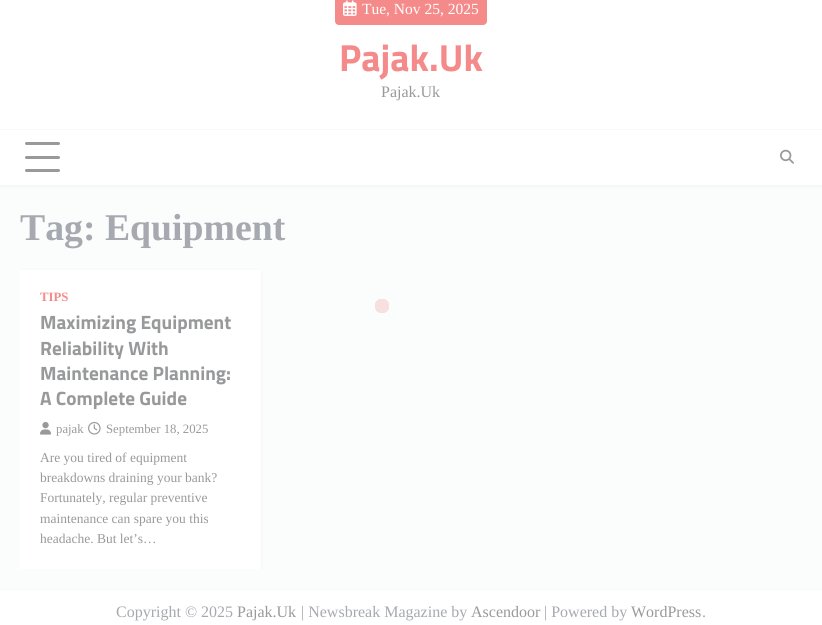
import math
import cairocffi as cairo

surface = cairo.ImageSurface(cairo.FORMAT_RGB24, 822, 625)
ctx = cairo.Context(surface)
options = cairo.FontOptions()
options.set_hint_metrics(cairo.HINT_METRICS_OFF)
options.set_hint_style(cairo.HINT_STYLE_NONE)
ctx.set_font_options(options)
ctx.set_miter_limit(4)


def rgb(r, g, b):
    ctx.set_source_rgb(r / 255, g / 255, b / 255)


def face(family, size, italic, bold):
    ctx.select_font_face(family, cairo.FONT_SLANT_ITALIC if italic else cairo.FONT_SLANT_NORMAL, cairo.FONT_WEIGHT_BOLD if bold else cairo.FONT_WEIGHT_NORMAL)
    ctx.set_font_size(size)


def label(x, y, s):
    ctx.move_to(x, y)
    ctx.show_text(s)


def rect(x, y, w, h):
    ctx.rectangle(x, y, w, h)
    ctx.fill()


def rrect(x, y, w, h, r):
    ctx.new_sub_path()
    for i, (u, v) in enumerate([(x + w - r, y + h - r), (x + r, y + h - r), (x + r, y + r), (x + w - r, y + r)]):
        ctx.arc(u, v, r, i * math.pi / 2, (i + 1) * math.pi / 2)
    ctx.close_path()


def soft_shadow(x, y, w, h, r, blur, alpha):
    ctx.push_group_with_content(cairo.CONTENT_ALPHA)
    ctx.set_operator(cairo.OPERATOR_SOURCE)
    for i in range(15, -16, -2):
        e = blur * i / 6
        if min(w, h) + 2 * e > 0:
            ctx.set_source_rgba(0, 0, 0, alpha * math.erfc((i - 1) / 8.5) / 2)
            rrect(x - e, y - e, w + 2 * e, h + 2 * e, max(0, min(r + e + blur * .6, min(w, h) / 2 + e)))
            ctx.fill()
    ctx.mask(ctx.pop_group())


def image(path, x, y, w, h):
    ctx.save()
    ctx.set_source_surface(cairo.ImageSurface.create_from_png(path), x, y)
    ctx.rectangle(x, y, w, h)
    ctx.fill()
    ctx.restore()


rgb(251, 252, 252)
ctx.paint()
rgb(138, 138, 138)
soft_shadow(0, -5, 822, 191, 0, 1.5, 0.1)
rgb(255, 255, 255)
rect(0, 0, 822, 129)
rgb(245, 138, 138)
rrect(335, -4, 152, 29, 4)
ctx.fill()
image('image0.png', 343, 0, 14, 16)
face('Liberation Serif', 15.5, 0, 0)
rgb(255, 255, 255)
label(362, 14, 'Tue, Nov 25, 2025')
face('Titillium Web', 37.75, 0, 1)
rgb(245, 138, 138)
label(339, 71, 'Pajak.Uk')
face('Liberation Serif', 16, 0, 0)
rgb(152, 153, 154)
label(381, 97, 'Pajak.Uk')
rgb(255, 255, 255)
rect(0, 130, 822, 55)
rgb(249, 249, 249)
rect(0, 129, 822, 1)
rgb(152, 153, 154)
rrect(25, 142, 35, 3, 1.5)
ctx.fill()
rrect(25, 156, 35, 3, 1.5)
ctx.fill()
rrect(25, 169, 35, 3, 1.5)
ctx.fill()
image('image1.png', 780, 149, 14, 15)
face('Liberation Serif', 37.75, 0, 1)
rgb(166, 169, 175)
label(20, 240, 'Tag: Equipment')
ctx.save()
ctx.rectangle(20, 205, 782, 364)
ctx.clip()
rgb(138, 138, 138)
soft_shadow(20, 271, 241, 299, 0, 1.5, 0.1)
ctx.restore()
rgb(255, 255, 255)
rect(20, 270, 241, 299)
face('Liberation Serif', 12.75, 0, 1)
rgb(245, 138, 138)
label(40, 301, 'TIPS')
face('Titillium Web', 19.25, 0, 1)
rgb(152, 153, 154)
label(40, 329, 'Maximizing Equipment')
label(40, 355, 'Reliability With')
label(40, 380, 'Maintenance Planning:')
label(40, 405, 'A Complete Guide')
image('image2.png', 40, 421, 11, 14)
face('Liberation Serif', 12.75, 0, 0)
label(56, 433, 'pajak')
image('image3.png', 88, 421, 13, 14)
label(106, 433, 'September 18, 2025')
face('Liberation Serif', 13.5, 0, 0)
label(40, 462, 'Are you tired of equipment')
label(40, 482, 'breakdowns draining your bank?')
label(40, 502, 'Fortunately, regular preventive')
label(40, 523, 'maintenance can spare you this')
label(40, 543, 'headache. But let’s…')
gradient = cairo.RadialGradient(382, 306, 0, 382, 306, 7.5)
gradient.add_color_stop_rgba(0.9, 0.965, 0.882, 0.878, 1)
gradient.add_color_stop_rgba(1, 0.984, 0.988, 0.988, 1)
ctx.set_source(gradient)
rect(375, 299, 14, 14)
gradient = cairo.RadialGradient(382, 306, 0, 382, 306, 7.5)
gradient.add_color_stop_rgba(0.9, 0.965, 0.882, 0.878, 1)
gradient.add_color_stop_rgba(1, 0.965, 0.882, 0.878, 0)
ctx.set_source(gradient)
rect(375, 299, 14, 14)
rect(375, 299, 14, 14)
rect(375, 299, 14, 14)
rgb(255, 255, 255)
rect(0, 590, 822, 35)
rgb(249, 249, 249)
rect(0, 589, 822, 1)
face('Liberation Serif', 16, 0, 0)
rgb(166, 169, 175)
label(116, 617, 'Copyright © 2025')
rgb(152, 153, 154)
label(237, 617, 'Pajak.Uk')
rgb(166, 169, 175)
label(301, 617, '| Newsbreak Magazine by')
rgb(152, 153, 154)
label(471, 617, 'Ascendoor')
rgb(166, 169, 175)
label(544, 617, '| Powered by')
rgb(152, 153, 154)
label(631, 617, 'WordPress')
rgb(166, 169, 175)
label(702, 617, '.')
surface.write_to_png('render.png')
